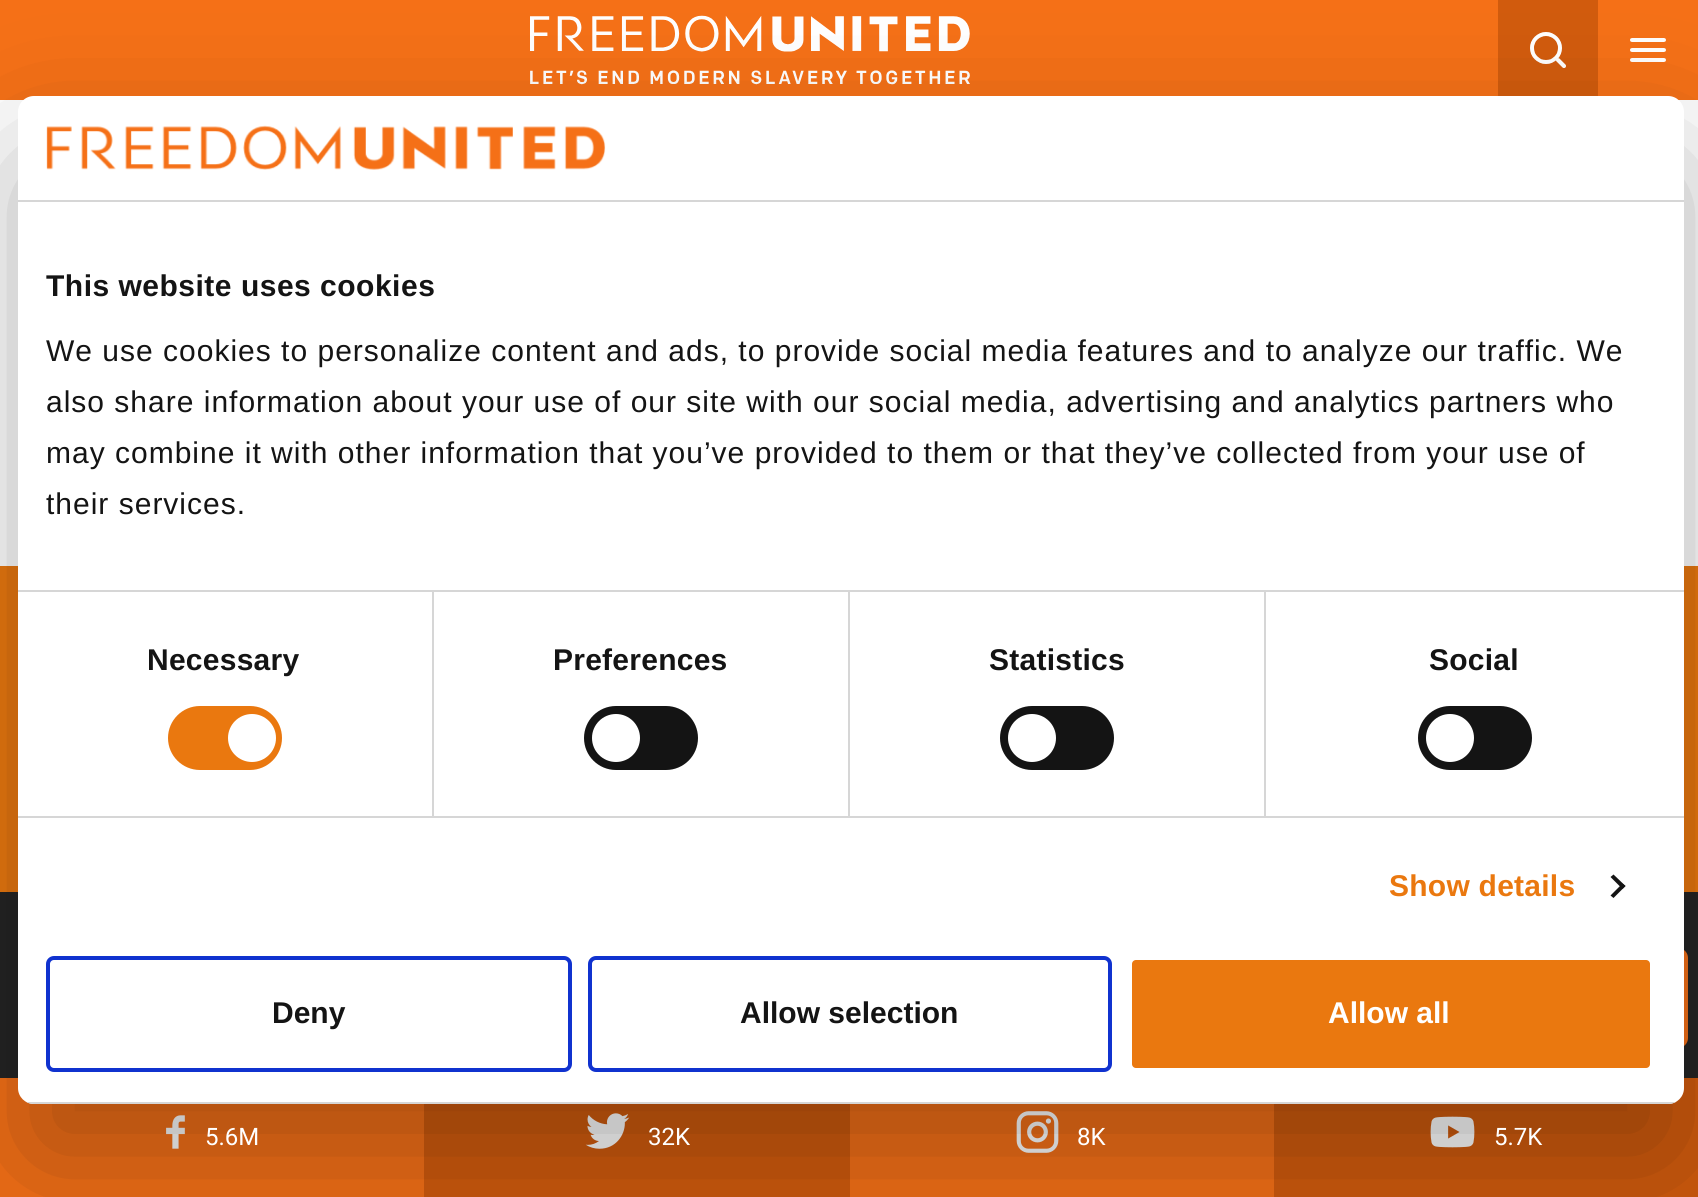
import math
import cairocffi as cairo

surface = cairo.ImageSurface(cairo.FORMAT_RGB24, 1698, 1197)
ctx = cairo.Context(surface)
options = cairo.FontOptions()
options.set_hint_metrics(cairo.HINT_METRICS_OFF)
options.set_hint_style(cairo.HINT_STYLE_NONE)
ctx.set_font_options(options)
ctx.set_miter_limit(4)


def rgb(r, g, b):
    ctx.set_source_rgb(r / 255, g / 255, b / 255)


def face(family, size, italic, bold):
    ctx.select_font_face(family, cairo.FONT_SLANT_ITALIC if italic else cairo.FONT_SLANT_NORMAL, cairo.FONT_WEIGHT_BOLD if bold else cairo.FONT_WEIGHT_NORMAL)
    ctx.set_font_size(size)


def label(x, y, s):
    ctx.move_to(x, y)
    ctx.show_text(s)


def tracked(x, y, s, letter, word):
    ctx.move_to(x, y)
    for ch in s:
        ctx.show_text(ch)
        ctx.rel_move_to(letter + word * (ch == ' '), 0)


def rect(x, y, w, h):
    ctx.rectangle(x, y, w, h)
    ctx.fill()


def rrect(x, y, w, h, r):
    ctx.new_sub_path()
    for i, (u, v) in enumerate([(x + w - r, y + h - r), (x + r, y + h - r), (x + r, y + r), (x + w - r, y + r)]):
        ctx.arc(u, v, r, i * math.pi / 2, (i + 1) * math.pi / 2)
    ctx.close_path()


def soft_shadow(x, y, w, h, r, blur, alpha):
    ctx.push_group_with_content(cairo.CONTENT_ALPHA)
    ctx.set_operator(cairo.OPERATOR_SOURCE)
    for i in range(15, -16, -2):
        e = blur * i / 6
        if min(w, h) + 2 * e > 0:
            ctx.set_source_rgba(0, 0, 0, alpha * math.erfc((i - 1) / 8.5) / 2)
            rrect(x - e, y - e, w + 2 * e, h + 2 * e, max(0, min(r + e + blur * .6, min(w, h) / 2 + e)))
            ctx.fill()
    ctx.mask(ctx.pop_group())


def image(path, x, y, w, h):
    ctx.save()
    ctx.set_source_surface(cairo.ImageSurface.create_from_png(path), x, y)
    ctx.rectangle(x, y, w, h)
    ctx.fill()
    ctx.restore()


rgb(255, 255, 255)
ctx.paint()
rgb(245, 112, 23)
rect(0, 0, 1698, 100)
image('image0.png', 530, 15, 440, 70)
rgb(209, 91, 13)
rect(1498, 0, 100, 96)
image('image1.png', 1530, 32, 36, 36)
image('image2.png', 1630, 38, 36, 24)
rgb(234, 120, 15)
rect(0, 566, 1698, 326)
rgb(36, 36, 36)
rect(0, 892, 1698, 186)
rgb(245, 112, 23)
rrect(1588, 948, 100, 100, 10)
ctx.fill()
rect(0, 1078, 424, 119)
image('image4.png', 166, 1115, 19, 34)
rgb(209, 91, 13)
rect(424, 1104, 426, 93)
image('image5.png', 585, 1113, 45, 36)
rgb(245, 112, 23)
rect(850, 1104, 424, 93)
image('image6.png', 1016, 1111, 43, 42)
rgb(209, 91, 13)
rect(1274, 1078, 424, 119)
image('image7.png', 1430, 1116, 45, 32)
rgb(0, 0, 0)
soft_shadow(18, 160, 1666, 1008, 16, 68, 0.3)
rgb(255, 255, 255)
rrect(18, 96, 1666, 1008, 16)
ctx.fill()
rgb(214, 214, 214)
rect(18, 200, 1666, 2)
image('image3.png', 46, 125, 560, 45)
rect(18, 590, 1666, 2)
face('Liberation Sans', 30, 0, 1)
rgb(20, 20, 20)
tracked(46, 296, 'This website uses cookies', 0.5, 0)
face('Liberation Sans', 30, 0, 0)
tracked(46, 361, 'We use cookies to personalize content and ads, to provide social media features and to analyze our traffic. We', 1, 0)
tracked(46, 412, 'also share information about your use of our site with our social media, advertising and analytics partners who', 1, 0)
tracked(46, 463, 'may combine it with other information that you’ve provided to them or that they’ve collected from your use of', 1, 0)
tracked(46, 514, 'their services.', 1, 0)
rgb(214, 214, 214)
rect(18, 816, 1666, 2)
rect(432, 592, 2, 224)
face('Liberation Sans', 30, 0, 1)
rgb(20, 20, 20)
tracked(147, 670, 'Necessary', 0.25, 0)
rgb(234, 120, 15)
rrect(168, 706, 114, 64, 32)
ctx.fill()
rgb(255, 255, 255)
ctx.arc(252, 738, 24, 0, 2 * math.pi)
ctx.fill()
rgb(214, 214, 214)
rect(848, 592, 2, 224)
rgb(20, 20, 20)
tracked(553, 670, 'Preferences', 0.25, 0)
rrect(584, 706, 114, 64, 32)
ctx.fill()
rgb(255, 255, 255)
ctx.arc(616, 738, 24, 0, 2 * math.pi)
ctx.fill()
rgb(214, 214, 214)
rect(1264, 592, 2, 224)
rgb(20, 20, 20)
tracked(989, 670, 'Statistics', 0.25, 0)
rrect(1000, 706, 114, 64, 32)
ctx.fill()
rgb(255, 255, 255)
ctx.arc(1032, 738, 24, 0, 2 * math.pi)
ctx.fill()
rgb(20, 20, 20)
tracked(1429, 670, 'Social', 0.25, 0)
rrect(1418, 706, 114, 64, 32)
ctx.fill()
rgb(255, 255, 255)
ctx.arc(1450, 738, 24, 0, 2 * math.pi)
ctx.fill()
rgb(234, 120, 15)
tracked(1389, 896, 'Show details', 0.25, 0)
rgb(20, 20, 20)
ctx.new_path()
ctx.move_to(1613.5, 874.5)
ctx.line_to(1625.5, 886)
ctx.line_to(1622.5, 889)
ctx.line_to(1610.5, 877)
ctx.close_path()
ctx.fill()
ctx.new_path()
ctx.move_to(1622.5, 883.5)
ctx.line_to(1625.5, 886)
ctx.line_to(1613.5, 898)
ctx.line_to(1610.5, 895.5)
ctx.close_path()
ctx.fill()
ctx.save()
rrect(18, 96, 1666, 1008, 16)
ctx.clip()
rgb(214, 214, 214)
rect(18, 1102, 1666, 2)
ctx.restore()
rrect(48, 958, 522, 112, 6)
rgb(16, 50, 207)
ctx.set_line_width(4)
ctx.stroke()
rgb(20, 20, 20)
label(272, 1023, 'Deny')
rrect(590, 958, 520, 112, 6)
rgb(16, 50, 207)
ctx.stroke()
rgb(20, 20, 20)
label(740, 1023, 'Allow selection')
rgb(234, 120, 15)
rrect(1130, 958, 522, 112, 6)
ctx.fill_preserve()
rgb(255, 255, 255)
ctx.stroke()
label(1328, 1023, 'Allow all')
face('Roboto', 24, 0, 0)
label(205, 1145, '5.6M')
label(648, 1145, '32K')
label(1077, 1145, '8K')
label(1494, 1145, '5.7K')
surface.write_to_png('render.png')
